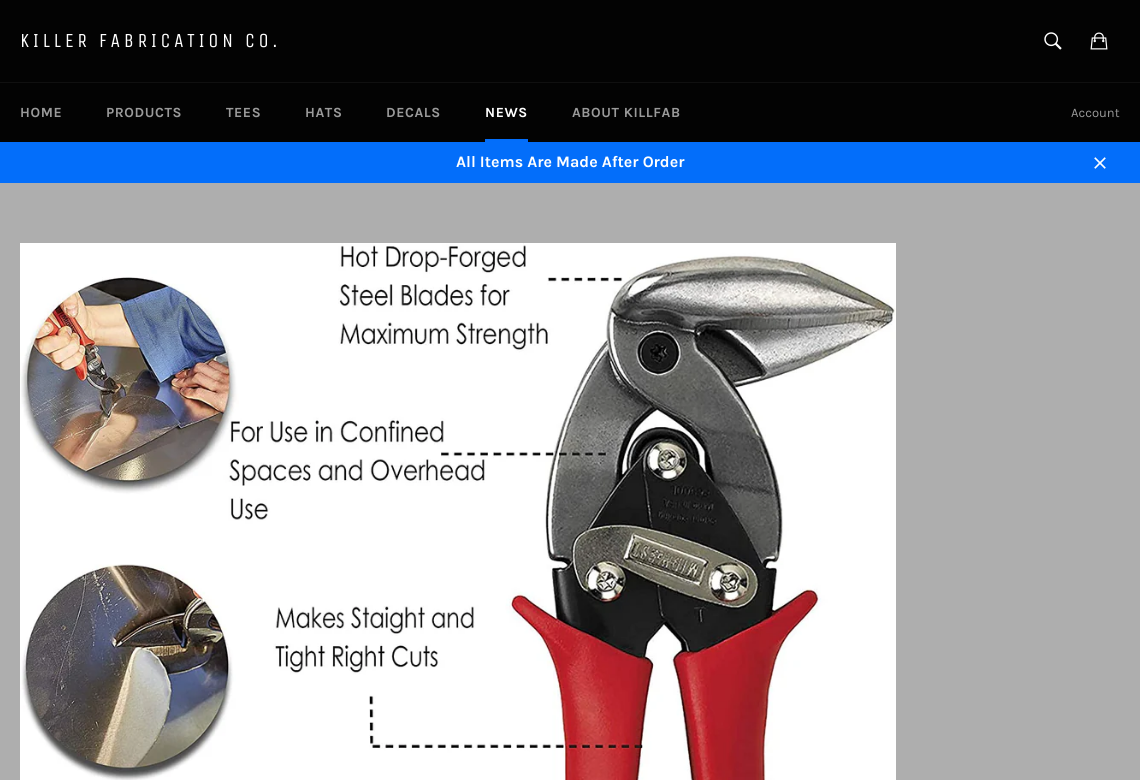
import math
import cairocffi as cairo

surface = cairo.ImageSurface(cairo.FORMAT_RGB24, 1140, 780)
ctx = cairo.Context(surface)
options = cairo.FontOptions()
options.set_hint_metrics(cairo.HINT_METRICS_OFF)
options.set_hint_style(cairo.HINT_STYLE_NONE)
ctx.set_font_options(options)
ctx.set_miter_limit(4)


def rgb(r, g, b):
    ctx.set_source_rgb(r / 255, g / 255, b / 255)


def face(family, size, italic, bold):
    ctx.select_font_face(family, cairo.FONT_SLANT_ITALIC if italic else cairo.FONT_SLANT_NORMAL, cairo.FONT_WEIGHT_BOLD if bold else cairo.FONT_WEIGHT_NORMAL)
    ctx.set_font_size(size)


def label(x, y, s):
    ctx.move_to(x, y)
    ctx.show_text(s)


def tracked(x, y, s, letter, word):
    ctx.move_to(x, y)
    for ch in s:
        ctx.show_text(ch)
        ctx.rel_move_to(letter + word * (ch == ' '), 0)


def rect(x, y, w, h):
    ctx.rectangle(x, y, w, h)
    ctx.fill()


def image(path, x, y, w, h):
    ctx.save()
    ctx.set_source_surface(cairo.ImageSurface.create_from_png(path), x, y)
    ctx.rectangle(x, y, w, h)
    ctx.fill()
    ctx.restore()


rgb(174, 174, 174)
ctx.paint()
rgb(3, 3, 3)
rect(0, 0, 1140, 82)
face('Unica One', 20, 0, 0)
rgb(255, 255, 255)
tracked(20, 47, 'KILLER FABRICATION CO.', 3.6, 0)
image('image0.png', 1044, 32, 18, 18)
image('image1.png', 1090, 32, 18, 18)
rgb(3, 3, 3)
rect(0, 83, 1140, 59)
rgb(16, 16, 16)
rect(0, 82, 1140, 1)
face('Karla', 14, 0, 1)
rgb(154, 154, 154)
tracked(20, 117, 'HOME', 0.6, 0)
tracked(106, 117, 'PRODUCTS', 0.6, 0)
tracked(226, 117, 'TEES', 0.6, 0)
tracked(305, 117, 'HATS', 0.6, 0)
tracked(386, 117, 'DECALS', 0.6, 0)
rgb(255, 255, 255)
tracked(485, 117, 'NEWS', 0.6, 0)
rgb(3, 110, 250)
rect(485, 139, 43, 3)
rgb(154, 154, 154)
tracked(572, 117, 'ABOUT KILLFAB', 0.6, 0)
face('Karla', 13, 0, 0)
label(1071, 117, 'Account')
rgb(3, 110, 250)
rect(0, 142, 1140, 41)
face('Karla', 16, 0, 1)
rgb(255, 255, 255)
label(456, 167, 'All Items Are Made After Order')
image('image2.png', 1094, 157, 12, 12)
image('image3.png', 20, 243, 876, 537)
surface.write_to_png('render.png')
